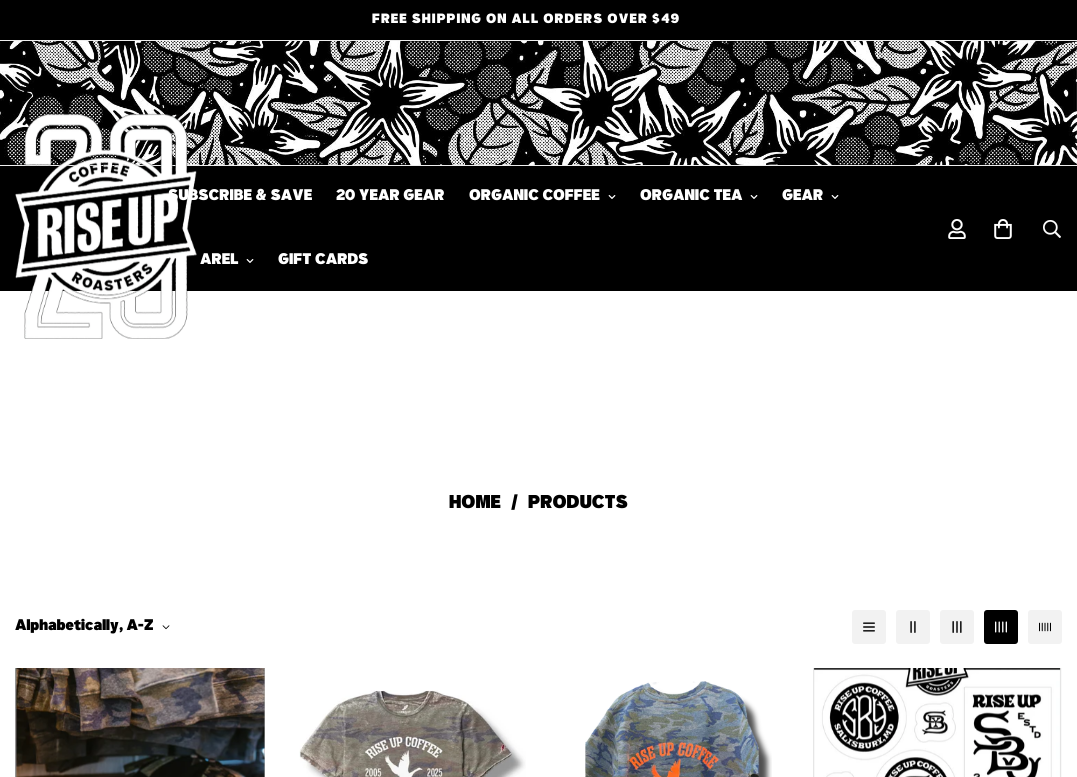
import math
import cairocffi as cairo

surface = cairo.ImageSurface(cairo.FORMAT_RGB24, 1077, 777)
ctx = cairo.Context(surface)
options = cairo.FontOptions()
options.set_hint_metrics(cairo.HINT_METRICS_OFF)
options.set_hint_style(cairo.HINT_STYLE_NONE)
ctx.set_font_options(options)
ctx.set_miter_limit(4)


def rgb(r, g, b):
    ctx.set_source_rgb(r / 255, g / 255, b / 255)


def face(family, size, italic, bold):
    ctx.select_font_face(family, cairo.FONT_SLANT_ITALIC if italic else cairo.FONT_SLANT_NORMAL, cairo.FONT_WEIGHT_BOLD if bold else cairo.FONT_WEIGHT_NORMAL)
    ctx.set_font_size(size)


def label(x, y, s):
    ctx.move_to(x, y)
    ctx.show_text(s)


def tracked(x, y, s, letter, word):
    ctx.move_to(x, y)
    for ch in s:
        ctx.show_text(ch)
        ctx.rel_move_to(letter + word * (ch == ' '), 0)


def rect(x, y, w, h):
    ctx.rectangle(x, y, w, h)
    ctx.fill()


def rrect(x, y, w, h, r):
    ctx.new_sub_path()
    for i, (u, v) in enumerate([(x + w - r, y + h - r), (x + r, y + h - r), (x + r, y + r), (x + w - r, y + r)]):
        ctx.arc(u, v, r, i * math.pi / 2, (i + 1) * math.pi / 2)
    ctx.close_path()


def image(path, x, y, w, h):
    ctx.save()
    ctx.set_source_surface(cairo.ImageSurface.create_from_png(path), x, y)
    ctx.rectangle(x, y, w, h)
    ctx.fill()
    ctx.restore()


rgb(255, 255, 255)
ctx.paint()
rgb(0, 0, 0)
rect(0, 0, 1077, 40)
rgb(238, 238, 238)
rect(0, 40, 1077, 1)
face('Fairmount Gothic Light', 14, 0, 0)
rgb(255, 255, 255)
tracked(372, 23, 'FREE SHIPPING ON ALL ORDERS OVER $49', 1, 0)
image('image0.png', 0, 41, 1077, 124)
rgb(238, 238, 238)
rect(0, 165, 1077, 1)
rgb(0, 0, 0)
rect(0, 166, 1077, 125)
image('image1.png', 15, 113, 182, 226)
face('Fairmount Gothic Light', 16, 0, 0)
rgb(255, 255, 255)
label(168, 200, 'SUBSCRIBE & SAVE')
label(336, 200, '20 YEAR GEAR')
label(469, 200, 'ORGANIC COFFEE')
image('image2.png', 608, 195, 8, 4)
label(640, 200, 'ORGANIC TEA')
image('image2.png', 750, 195, 8, 4)
label(782, 200, 'GEAR')
image('image2.png', 831, 195, 8, 4)
label(200, 264, 'AREL')
image('image2.png', 246, 259, 8, 4)
label(278, 264, 'GIFT CARDS')
image('image3.png', 948, 219, 18, 20)
image('image4.png', 994, 219, 18, 20)
image('image5.png', 1043, 220, 18, 18)
face('Fairmount Gothic Light', 19.25, 0, 0)
rgb(0, 0, 0)
label(449, 508, 'HOME')
label(511, 508, '/')
label(528, 508, 'PRODUCTS')
face('Fairmount Gothic Light', 16, 0, 0)
label(15, 630, 'Alphabetically, A-Z')
image('image6.png', 162, 625, 8, 5)
rgb(242, 242, 242)
rrect(852, 610, 34, 34, 3)
ctx.fill()
image('image7.png', 863, 622, 12, 10)
rrect(896, 610, 34, 34, 3)
ctx.fill()
image('image8.png', 910, 621, 6, 12)
rrect(940, 610, 34, 34, 3)
ctx.fill()
image('image9.png', 952, 621, 10, 12)
rgb(0, 0, 0)
rrect(984, 610, 34, 34, 3)
ctx.fill()
image('image10.png', 995, 621, 12, 12)
rgb(242, 242, 242)
rrect(1028, 610, 34, 34, 3)
ctx.fill()
image('image11.png', 1039, 622, 12, 10)
image('image12.png', 15, 668, 250, 109)
image('image13.png', 299, 690, 227, 87)
image('image14.png', 585, 681, 187, 96)
image('image15.png', 813, 668, 249, 109)
surface.write_to_png('render.png')
